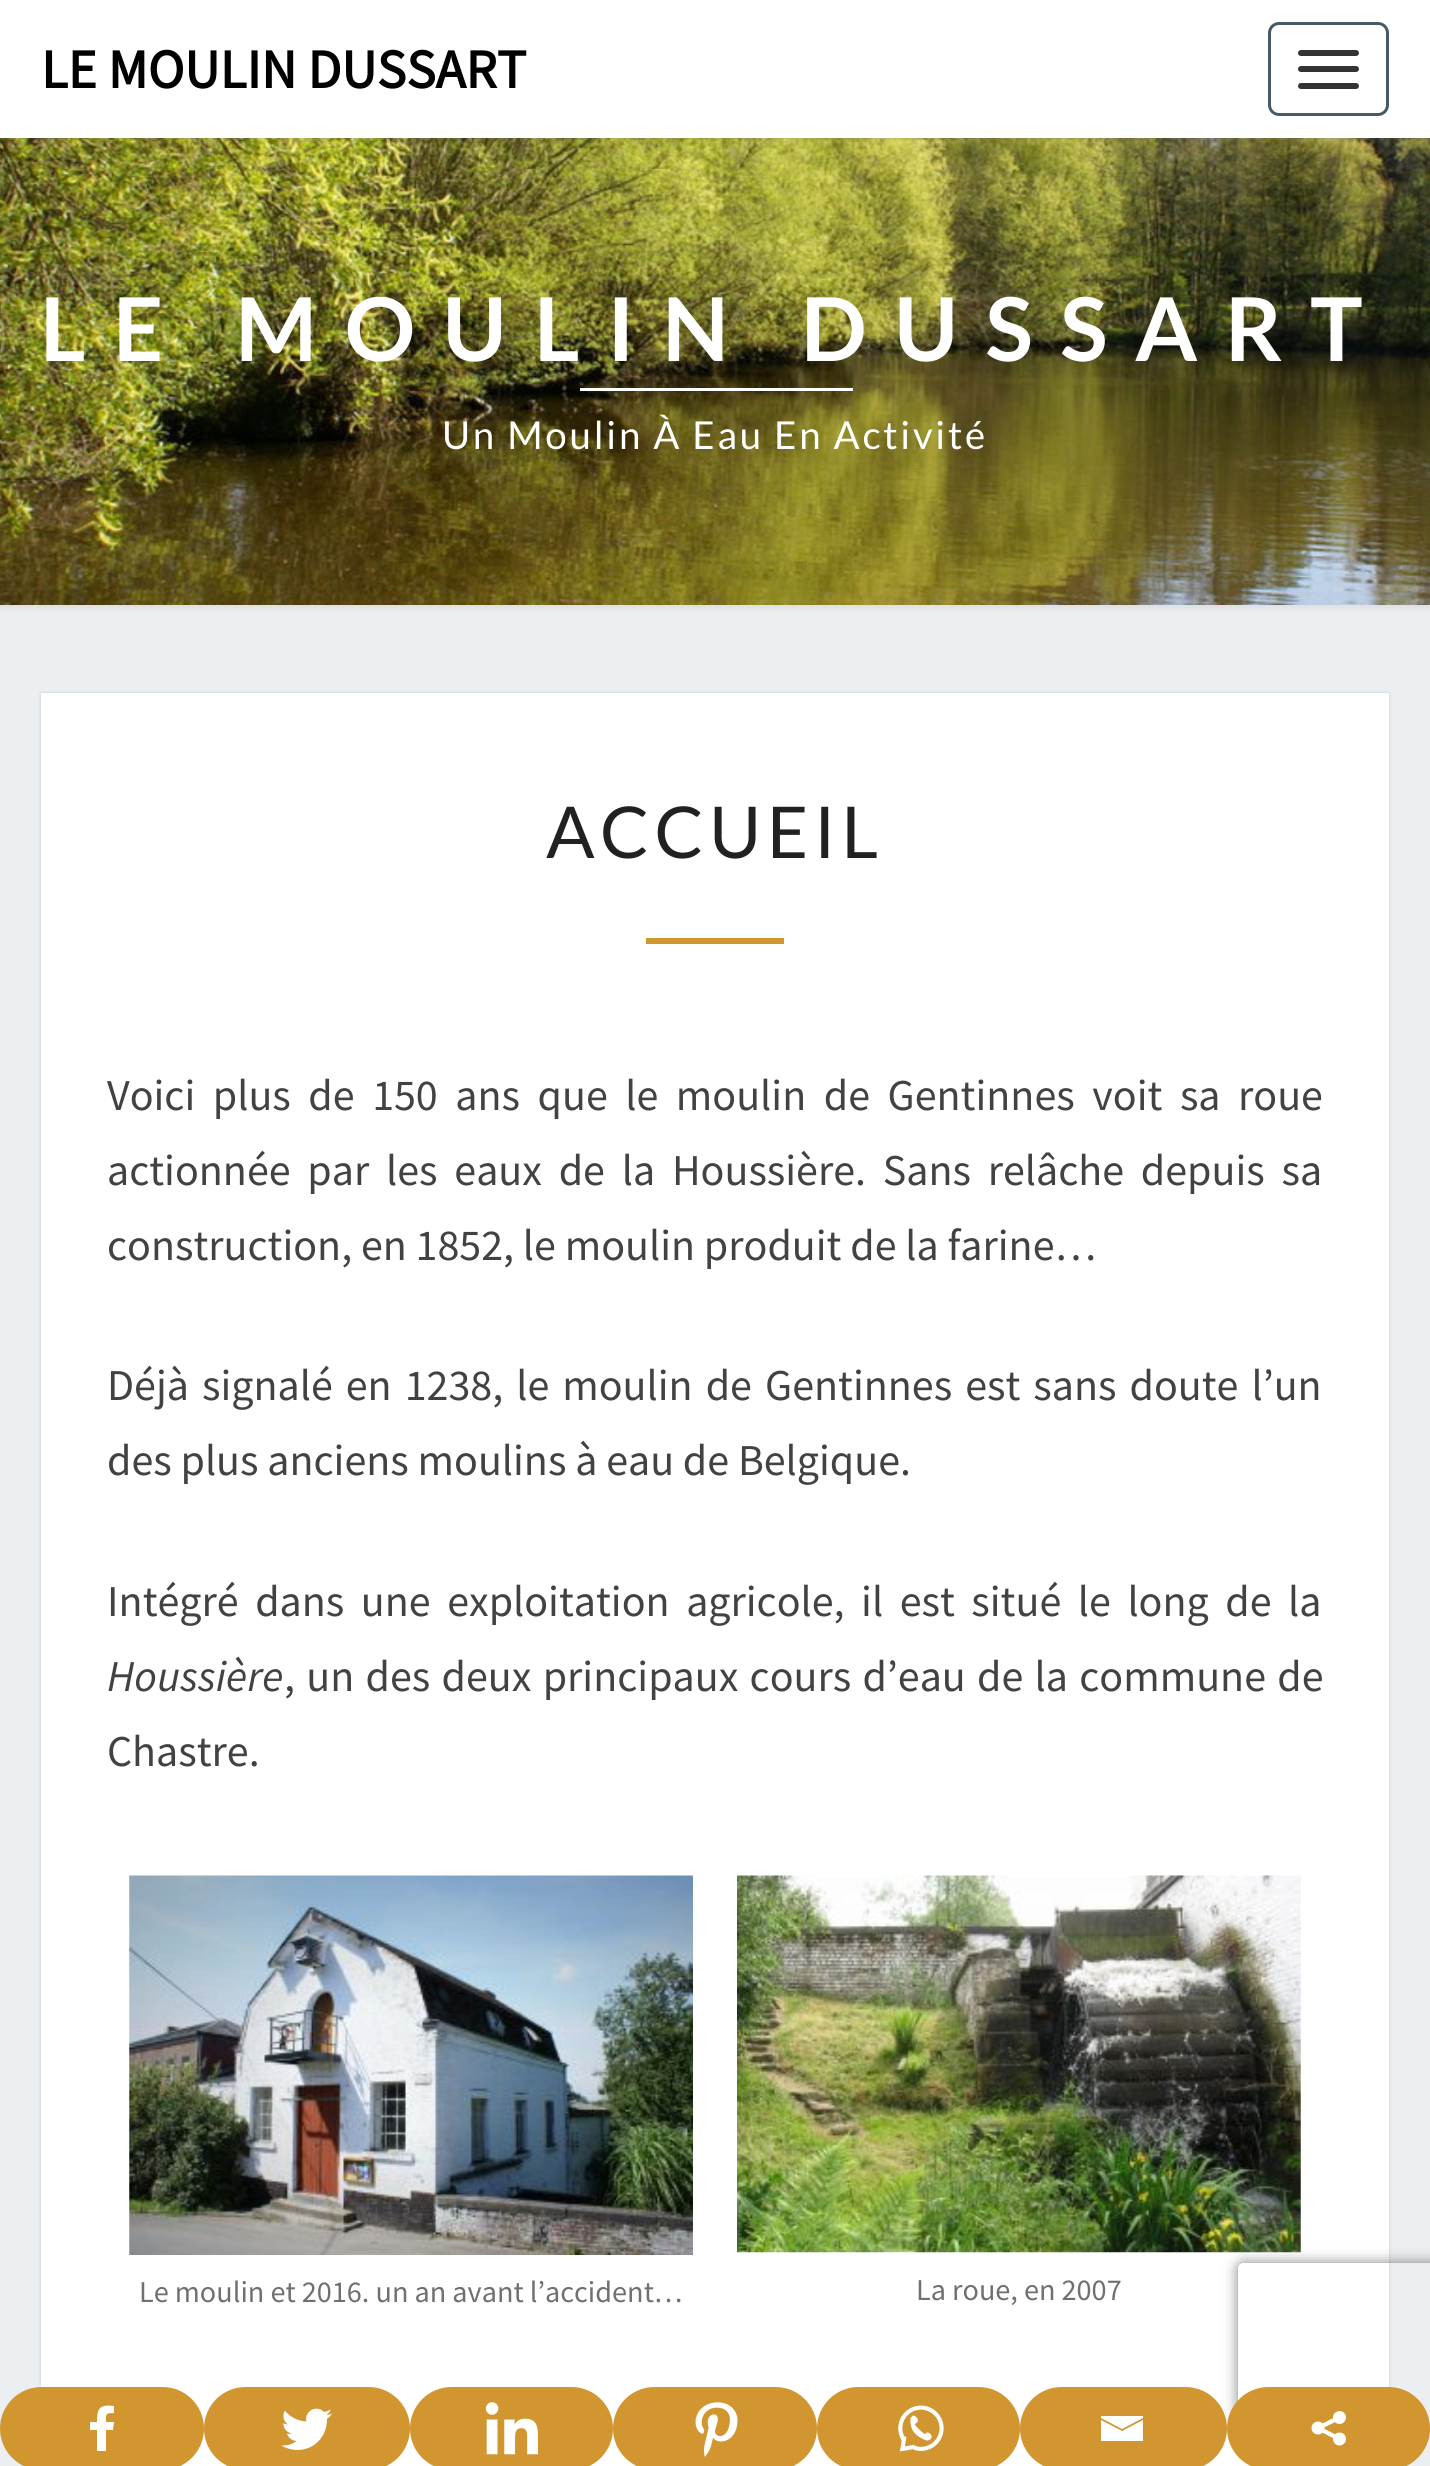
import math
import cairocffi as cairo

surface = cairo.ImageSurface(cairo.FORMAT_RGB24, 1430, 2466)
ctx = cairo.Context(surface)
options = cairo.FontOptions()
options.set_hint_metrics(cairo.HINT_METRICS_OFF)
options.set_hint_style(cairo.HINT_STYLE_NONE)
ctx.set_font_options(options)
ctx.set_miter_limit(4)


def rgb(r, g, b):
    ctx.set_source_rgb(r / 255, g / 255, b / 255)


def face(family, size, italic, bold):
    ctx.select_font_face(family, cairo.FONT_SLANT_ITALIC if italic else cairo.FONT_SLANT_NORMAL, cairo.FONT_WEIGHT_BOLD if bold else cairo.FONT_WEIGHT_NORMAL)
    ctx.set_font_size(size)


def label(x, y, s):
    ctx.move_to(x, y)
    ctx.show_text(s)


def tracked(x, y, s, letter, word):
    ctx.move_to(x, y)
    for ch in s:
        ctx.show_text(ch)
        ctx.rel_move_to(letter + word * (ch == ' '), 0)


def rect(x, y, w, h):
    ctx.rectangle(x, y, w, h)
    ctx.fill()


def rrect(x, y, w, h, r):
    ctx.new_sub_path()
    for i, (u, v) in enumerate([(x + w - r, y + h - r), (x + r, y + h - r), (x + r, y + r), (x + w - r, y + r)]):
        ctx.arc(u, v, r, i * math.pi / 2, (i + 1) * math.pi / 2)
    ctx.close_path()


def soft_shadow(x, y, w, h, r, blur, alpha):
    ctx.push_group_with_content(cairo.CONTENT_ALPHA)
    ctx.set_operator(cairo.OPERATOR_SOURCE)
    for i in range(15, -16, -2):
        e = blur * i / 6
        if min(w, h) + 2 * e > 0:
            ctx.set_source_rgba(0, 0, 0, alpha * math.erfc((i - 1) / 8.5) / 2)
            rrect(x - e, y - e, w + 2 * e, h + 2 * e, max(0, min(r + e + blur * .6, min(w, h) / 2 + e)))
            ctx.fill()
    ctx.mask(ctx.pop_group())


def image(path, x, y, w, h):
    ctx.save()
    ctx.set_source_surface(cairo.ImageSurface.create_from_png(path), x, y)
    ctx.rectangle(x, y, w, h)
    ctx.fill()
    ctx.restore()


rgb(236, 239, 241)
ctx.paint()
rgb(182, 182, 182)
soft_shadow(-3, 135, 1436, 473, 0, 3, 0.3)
image('image0.png', 0, 138, 1430, 467)
rgb(100, 100, 100)
soft_shadow(0, 3, 1430, 137, 0, 1.5, 0.2)
rgb(255, 255, 255)
rect(0, 0, 1430, 138)
face('Source Sans Pro', 55, 0, 1)
rgb(0, 0, 0)
label(41, 88, 'LE MOULIN DUSSART')
rrect(1269.5, 23.5, 118, 91, 9.5)
rgb(69, 90, 100)
ctx.set_line_width(3)
ctx.stroke()
rgb(51, 51, 51)
rrect(1298, 50, 61, 6, 3)
ctx.fill()
rrect(1298, 66, 61, 6, 3)
ctx.fill()
rrect(1298, 83, 61, 6, 3)
ctx.fill()
face('Lato', 88, 0, 1)
rgb(255, 255, 255)
tracked(40, 361, 'LE MOULIN DUSSART', 27.5, 0)
rect(580, 388, 273, 3)
face('Lato', 38.5, 0, 0)
tracked(442, 449, 'Un Moulin À Eau En Activité', 2.75, 0)
rgb(0, 0, 0)
soft_shadow(41, 693, 1348, 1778, 0, 1.5, 0.15)
rgb(255, 255, 255)
rect(41, 693, 1348, 1773)
face('Lato', 71.5, 0, 0)
rgb(33, 33, 33)
tracked(546, 858, 'ACCUEIL', 5.5, 0)
rgb(209, 150, 48)
rect(646, 938, 138, 6)
face('Source Sans Pro', 44, 0, 0)
rgb(66, 66, 66)
tracked(107, 1110, 'Voici plus de 150 ans que le moulin de Gentinnes voit sa roue', 0, 8.75)
tracked(107, 1185, 'actionnée par les eaux de la Houssière. Sans relâche depuis sa', 0, 8)
label(107, 1260, 'construction, en 1852, le moulin produit de la farine…')
tracked(107, 1400, 'Déjà signalé en 1238, le moulin de Gentinnes est sans doute l’un', 0, 4.25)
label(107, 1475, 'des plus anciens moulins à eau de Belgique.')
tracked(107, 1616, 'Intégré dans une exploitation agricole, il est situé le long de la', 0, 7.75)
face('Source Sans Pro', 44, 1, 0)
label(107, 1691, 'Houssière')
face('Source Sans Pro', 44, 0, 0)
tracked(284, 1691, ', un des deux principaux cours d’eau de la commune de', 0, 2.5)
label(107, 1766, 'Chastre.')
image('image1.png', 129, 1875, 564, 380)
face('Source Sans Pro', 30.25, 0, 0)
rgb(112, 112, 112)
label(139, 2302, 'Le moulin et 2016. un an avant l’accident…')
image('image2.png', 737, 1875, 564, 378)
label(916, 2300, 'La roue, en 2007')
rgb(209, 150, 48)
rrect(0, 2387, 204, 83, 41.5)
ctx.fill()
rgb(255, 255, 255)
ctx.new_path()
ctx.move_to(106, 2451)
ctx.line_to(106, 2430)
ctx.line_to(113, 2430)
ctx.line_to(114, 2422)
ctx.line_to(106, 2422)
ctx.curve_to(106, 2414, 105, 2413, 114, 2413)
ctx.line_to(114, 2406)
ctx.curve_to(99, 2404, 97, 2409, 97, 2422)
ctx.line_to(90, 2422)
ctx.line_to(90, 2430)
ctx.line_to(97, 2430)
ctx.line_to(97, 2451)
ctx.close_path()
ctx.fill()
rgb(209, 150, 48)
rrect(204, 2387, 206, 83, 41.5)
ctx.fill()
image('image3.png', 281, 2408, 51, 42)
rrect(410, 2387, 203, 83, 41.5)
ctx.fill()
image('image4.png', 485, 2402, 53, 53)
rrect(613, 2387, 204, 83, 41.5)
ctx.fill()
image('image5.png', 695, 2402, 43, 55)
rrect(817, 2387, 203, 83, 41.5)
ctx.fill()
image('image6.png', 898, 2405, 46, 47)
ctx.save()
ctx.set_fill_rule(cairo.FILL_RULE_EVEN_ODD)
ctx.new_path()
ctx.move_to(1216, 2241)
ctx.line_to(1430, 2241)
ctx.line_to(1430, 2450)
ctx.line_to(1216, 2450)
ctx.close_path()
ctx.move_to(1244, 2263)
ctx.line_to(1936, 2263)
ctx.curve_to(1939.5, 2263, 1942, 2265.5, 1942, 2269)
ctx.line_to(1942, 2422)
ctx.curve_to(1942, 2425.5, 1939.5, 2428, 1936, 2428)
ctx.line_to(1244, 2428)
ctx.curve_to(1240.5, 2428, 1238, 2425.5, 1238, 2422)
ctx.line_to(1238, 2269)
ctx.curve_to(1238, 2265.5, 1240.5, 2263, 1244, 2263)
ctx.close_path()
ctx.clip()
rgb(128, 128, 128)
soft_shadow(1238, 2263, 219, 165, 6, 7, 1)
ctx.restore()
rrect(1020, 2387, 207, 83, 41.5)
ctx.fill()
rgb(255, 255, 255)
ctx.new_path()
ctx.move_to(1099, 2416)
ctx.line_to(1143, 2416)
ctx.line_to(1143, 2418)
ctx.line_to(1122, 2429)
ctx.line_to(1101, 2418)
ctx.line_to(1101, 2416)
ctx.move_to(1101, 2420)
ctx.line_to(1122, 2431)
ctx.line_to(1143, 2420)
ctx.line_to(1143, 2441)
ctx.line_to(1101, 2441)
ctx.line_to(1101, 2420)
ctx.fill()
rgb(209, 150, 48)
rrect(1227, 2387, 203, 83, 41.5)
ctx.fill()
rgb(255, 255, 255)
ctx.arc(1318, 2428, 6.5, 0, 2 * math.pi)
ctx.fill()
ctx.arc(1339.5, 2417.5, 6.5, 0, 2 * math.pi)
ctx.fill()
ctx.arc(1339.5, 2439, 6.5, 0, 2 * math.pi)
ctx.fill()
ctx.new_path()
ctx.move_to(1318, 2428)
ctx.line_to(1339.5, 2417.5)
ctx.move_to(1339.5, 2439)
ctx.line_to(1318, 2428)
ctx.set_line_width(4.3)
ctx.stroke()
surface.write_to_png('render.png')
